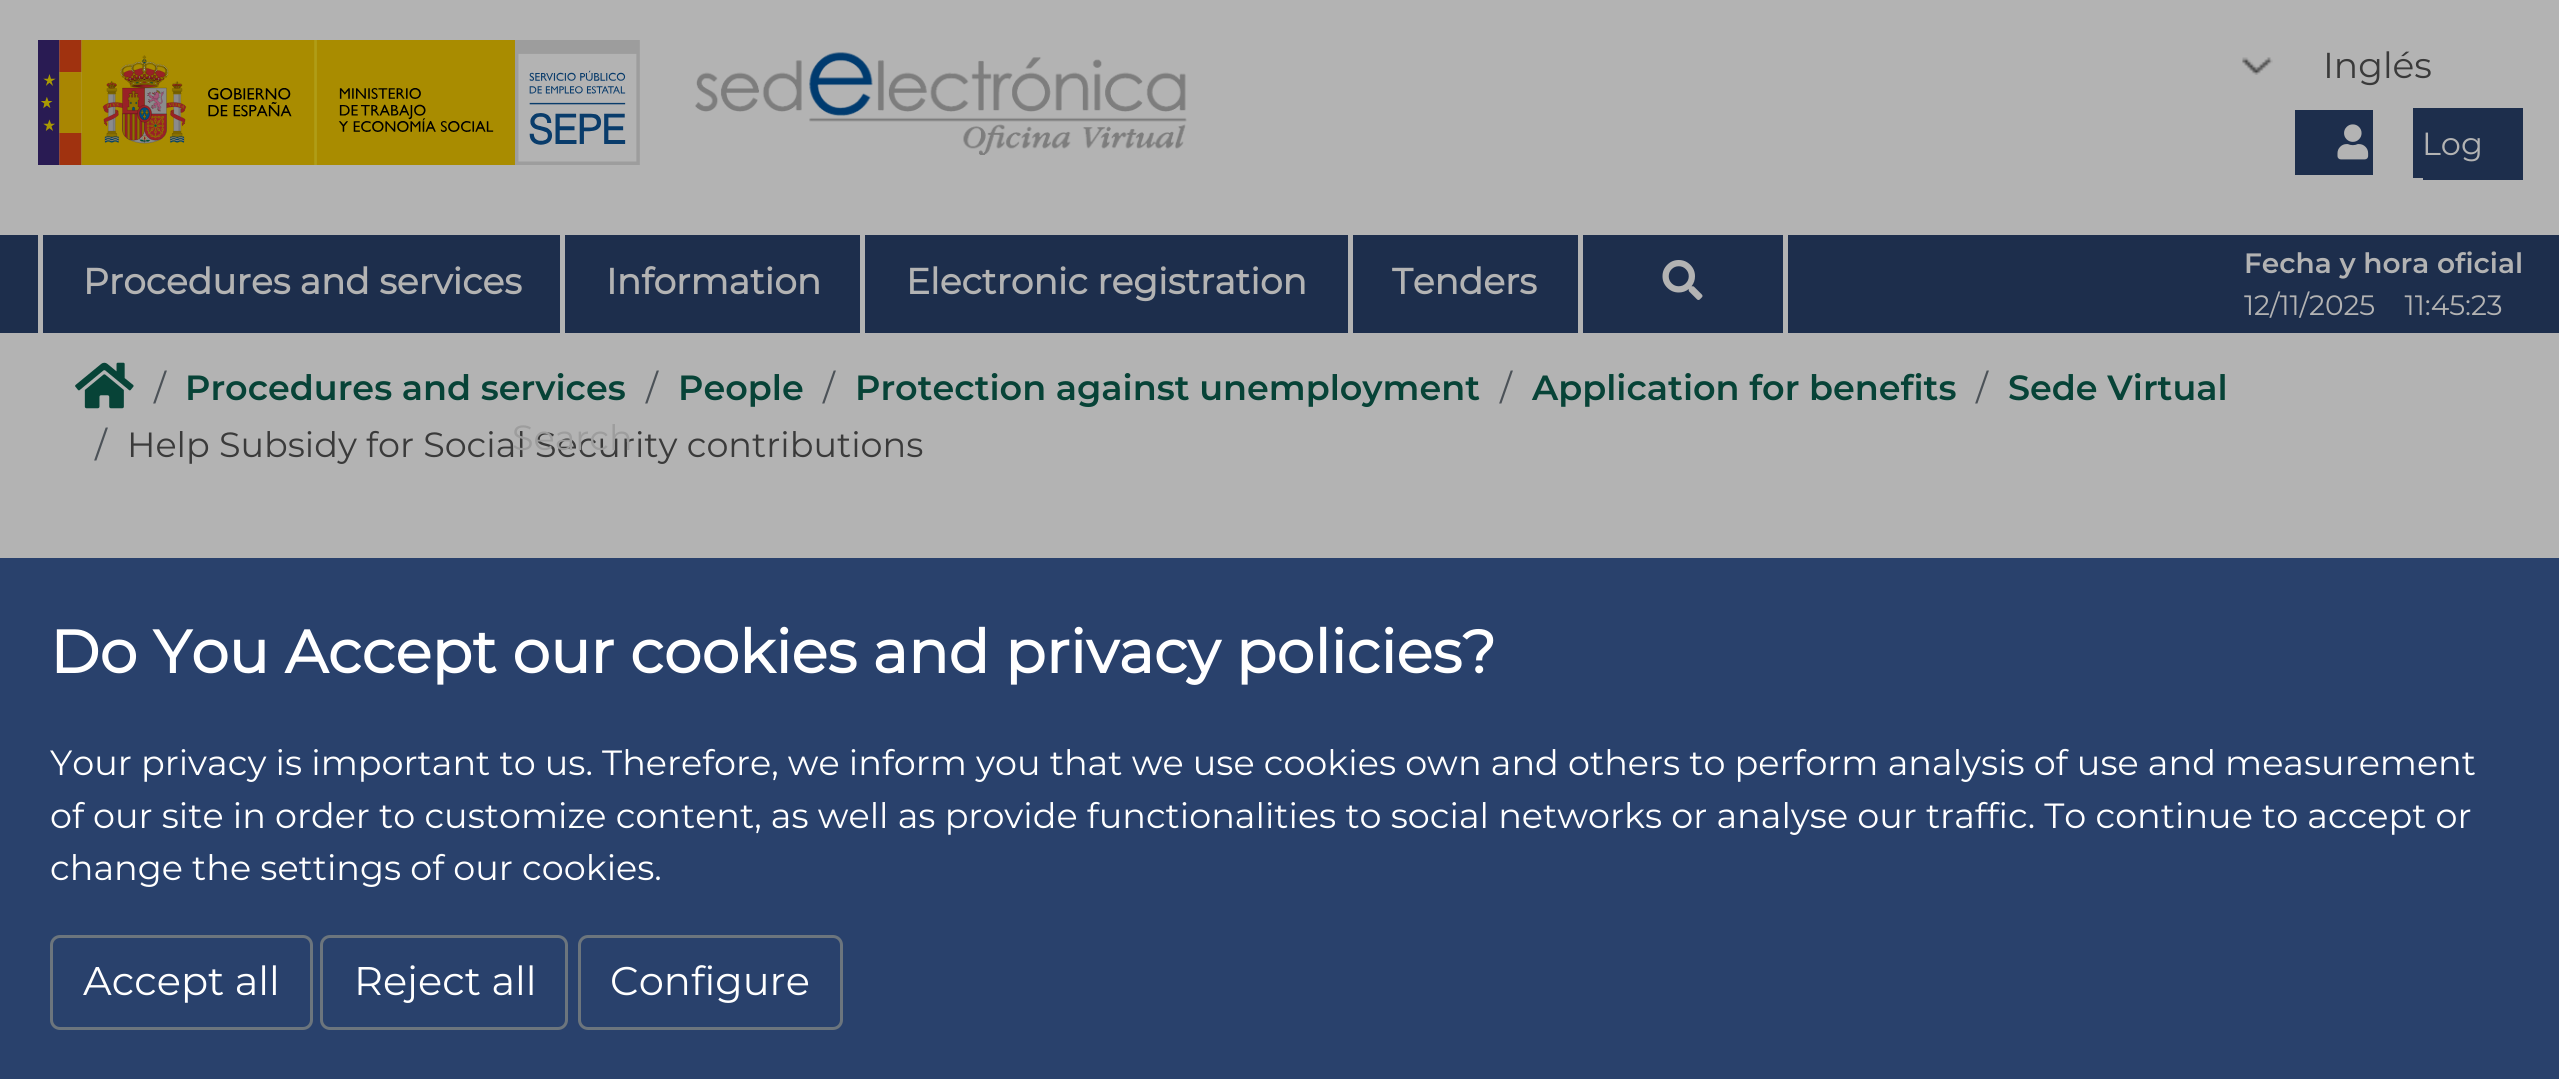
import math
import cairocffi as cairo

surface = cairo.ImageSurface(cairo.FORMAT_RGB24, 2559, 1079)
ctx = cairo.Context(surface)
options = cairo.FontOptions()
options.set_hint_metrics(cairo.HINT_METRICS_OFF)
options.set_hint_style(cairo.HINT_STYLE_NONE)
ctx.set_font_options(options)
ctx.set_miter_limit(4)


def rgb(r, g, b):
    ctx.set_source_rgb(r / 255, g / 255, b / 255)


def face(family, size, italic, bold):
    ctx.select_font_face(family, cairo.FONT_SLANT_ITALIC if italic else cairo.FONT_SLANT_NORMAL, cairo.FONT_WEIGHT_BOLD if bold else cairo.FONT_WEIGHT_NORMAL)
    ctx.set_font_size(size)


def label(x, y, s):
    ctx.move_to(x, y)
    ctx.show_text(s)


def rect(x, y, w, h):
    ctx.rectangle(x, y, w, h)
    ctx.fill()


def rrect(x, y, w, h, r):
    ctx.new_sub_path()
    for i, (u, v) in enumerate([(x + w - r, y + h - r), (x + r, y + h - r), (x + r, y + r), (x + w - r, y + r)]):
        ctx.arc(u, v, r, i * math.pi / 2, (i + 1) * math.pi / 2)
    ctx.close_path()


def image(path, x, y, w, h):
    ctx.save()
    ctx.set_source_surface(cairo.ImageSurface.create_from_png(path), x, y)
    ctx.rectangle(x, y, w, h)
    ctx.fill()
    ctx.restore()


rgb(179, 179, 179)
ctx.paint()
image('image0.png', 38, 40, 602, 125)
image('image1.png', 695, 52, 492, 103)
image('image2.png', 2242, 57, 31, 18)
face('Montserrat', 36, 0, 0)
rgb(58, 58, 58)
label(2323, 78, 'Inglés')
rgb(29, 46, 76)
rect(2295, 110, 78, 65)
rect(2413, 108, 10, 70)
rect(2423, 108, 100, 72)
image('image3.png', 2337, 124, 32, 36)
face('Montserrat', 32, 0, 0)
rgb(179, 179, 179)
label(2422, 155, 'Log')
rgb(29, 46, 76)
rect(0, 235, 2559, 98)
rgb(179, 179, 179)
rect(38, 235, 5, 98)
rect(560, 235, 5, 98)
face('Montserrat', 36, 0, 1)
label(83, 294, 'Procedures and services')
rect(860, 235, 5, 98)
label(606, 294, 'Information')
rect(1348, 235, 5, 98)
label(906, 294, 'Electronic registration')
rect(1578, 235, 5, 98)
label(1392, 294, 'Tenders')
rect(1783, 235, 5, 98)
image('image4.png', 1662, 260, 41, 40)
face('Montserrat SemiBold', 28, 0, 0)
label(2244, 273, 'Fecha y hora oficial')
face('Montserrat', 28, 0, 0)
label(2244, 315, '12/11/2025    11:45:23')
image('image5.png', 75, 362, 59, 47)
face('Montserrat', 35, 0, 0)
rgb(76, 82, 88)
label(154, 400, '/')
face('Montserrat SemiBold', 35, 0, 0)
rgb(7, 67, 55)
label(185, 400, 'Procedures and services')
face('Montserrat', 35, 0, 0)
rgb(76, 82, 88)
label(646, 400, '/')
face('Montserrat SemiBold', 35, 0, 0)
rgb(7, 67, 55)
label(678, 400, 'People')
face('Montserrat', 35, 0, 0)
rgb(76, 82, 88)
label(823, 400, '/')
face('Montserrat SemiBold', 35, 0, 0)
rgb(7, 67, 55)
label(855, 400, 'Protection against unemployment')
face('Montserrat', 35, 0, 0)
rgb(76, 82, 88)
label(1500, 400, '/')
face('Montserrat SemiBold', 35, 0, 0)
rgb(7, 67, 55)
label(1532, 400, 'Application for benefits')
face('Montserrat', 35, 0, 0)
rgb(76, 82, 88)
label(1976, 400, '/')
face('Montserrat SemiBold', 35, 0, 0)
rgb(7, 67, 55)
label(2008, 400, 'Sede Virtual')
face('Montserrat', 35, 0, 0)
rgb(76, 82, 88)
label(95, 457, '/')
rgb(58, 58, 58)
label(127, 457, 'Help Subsidy for Social Security contributions')
rgb(157, 157, 157)
label(512, 450, 'Search')
rgb(41, 65, 108)
rect(0, 558, 2559, 521)
face('Montserrat', 60, 0, 1)
rgb(255, 255, 255)
label(50, 673, 'Do You Accept our cookies and privacy policies?')
face('Montserrat', 35, 0, 0)
label(50, 775, 'Your privacy is important to us. Therefore, we inform you that we use cookies own and others to perform analysis of use and measurement')
label(50, 828, 'of our site in order to customize content, as well as provide functionalities to social networks or analyse our traffic. To continue to accept or')
label(50, 880, 'change the settings of our cookies.')
rrect(51.5, 936.5, 260, 92, 8.5)
rgb(108, 117, 125)
ctx.set_line_width(3)
ctx.stroke()
face('Montserrat', 40, 0, 0)
rgb(255, 255, 255)
label(83, 995, 'Accept all')
rrect(321.5, 936.5, 245, 92, 8.5)
rgb(108, 117, 125)
ctx.stroke()
rgb(255, 255, 255)
label(354, 995, 'Reject all')
rrect(579.5, 936.5, 262, 92, 8.5)
rgb(108, 117, 125)
ctx.stroke()
rgb(255, 255, 255)
label(610, 995, 'Configure')
surface.write_to_png('render.png')
